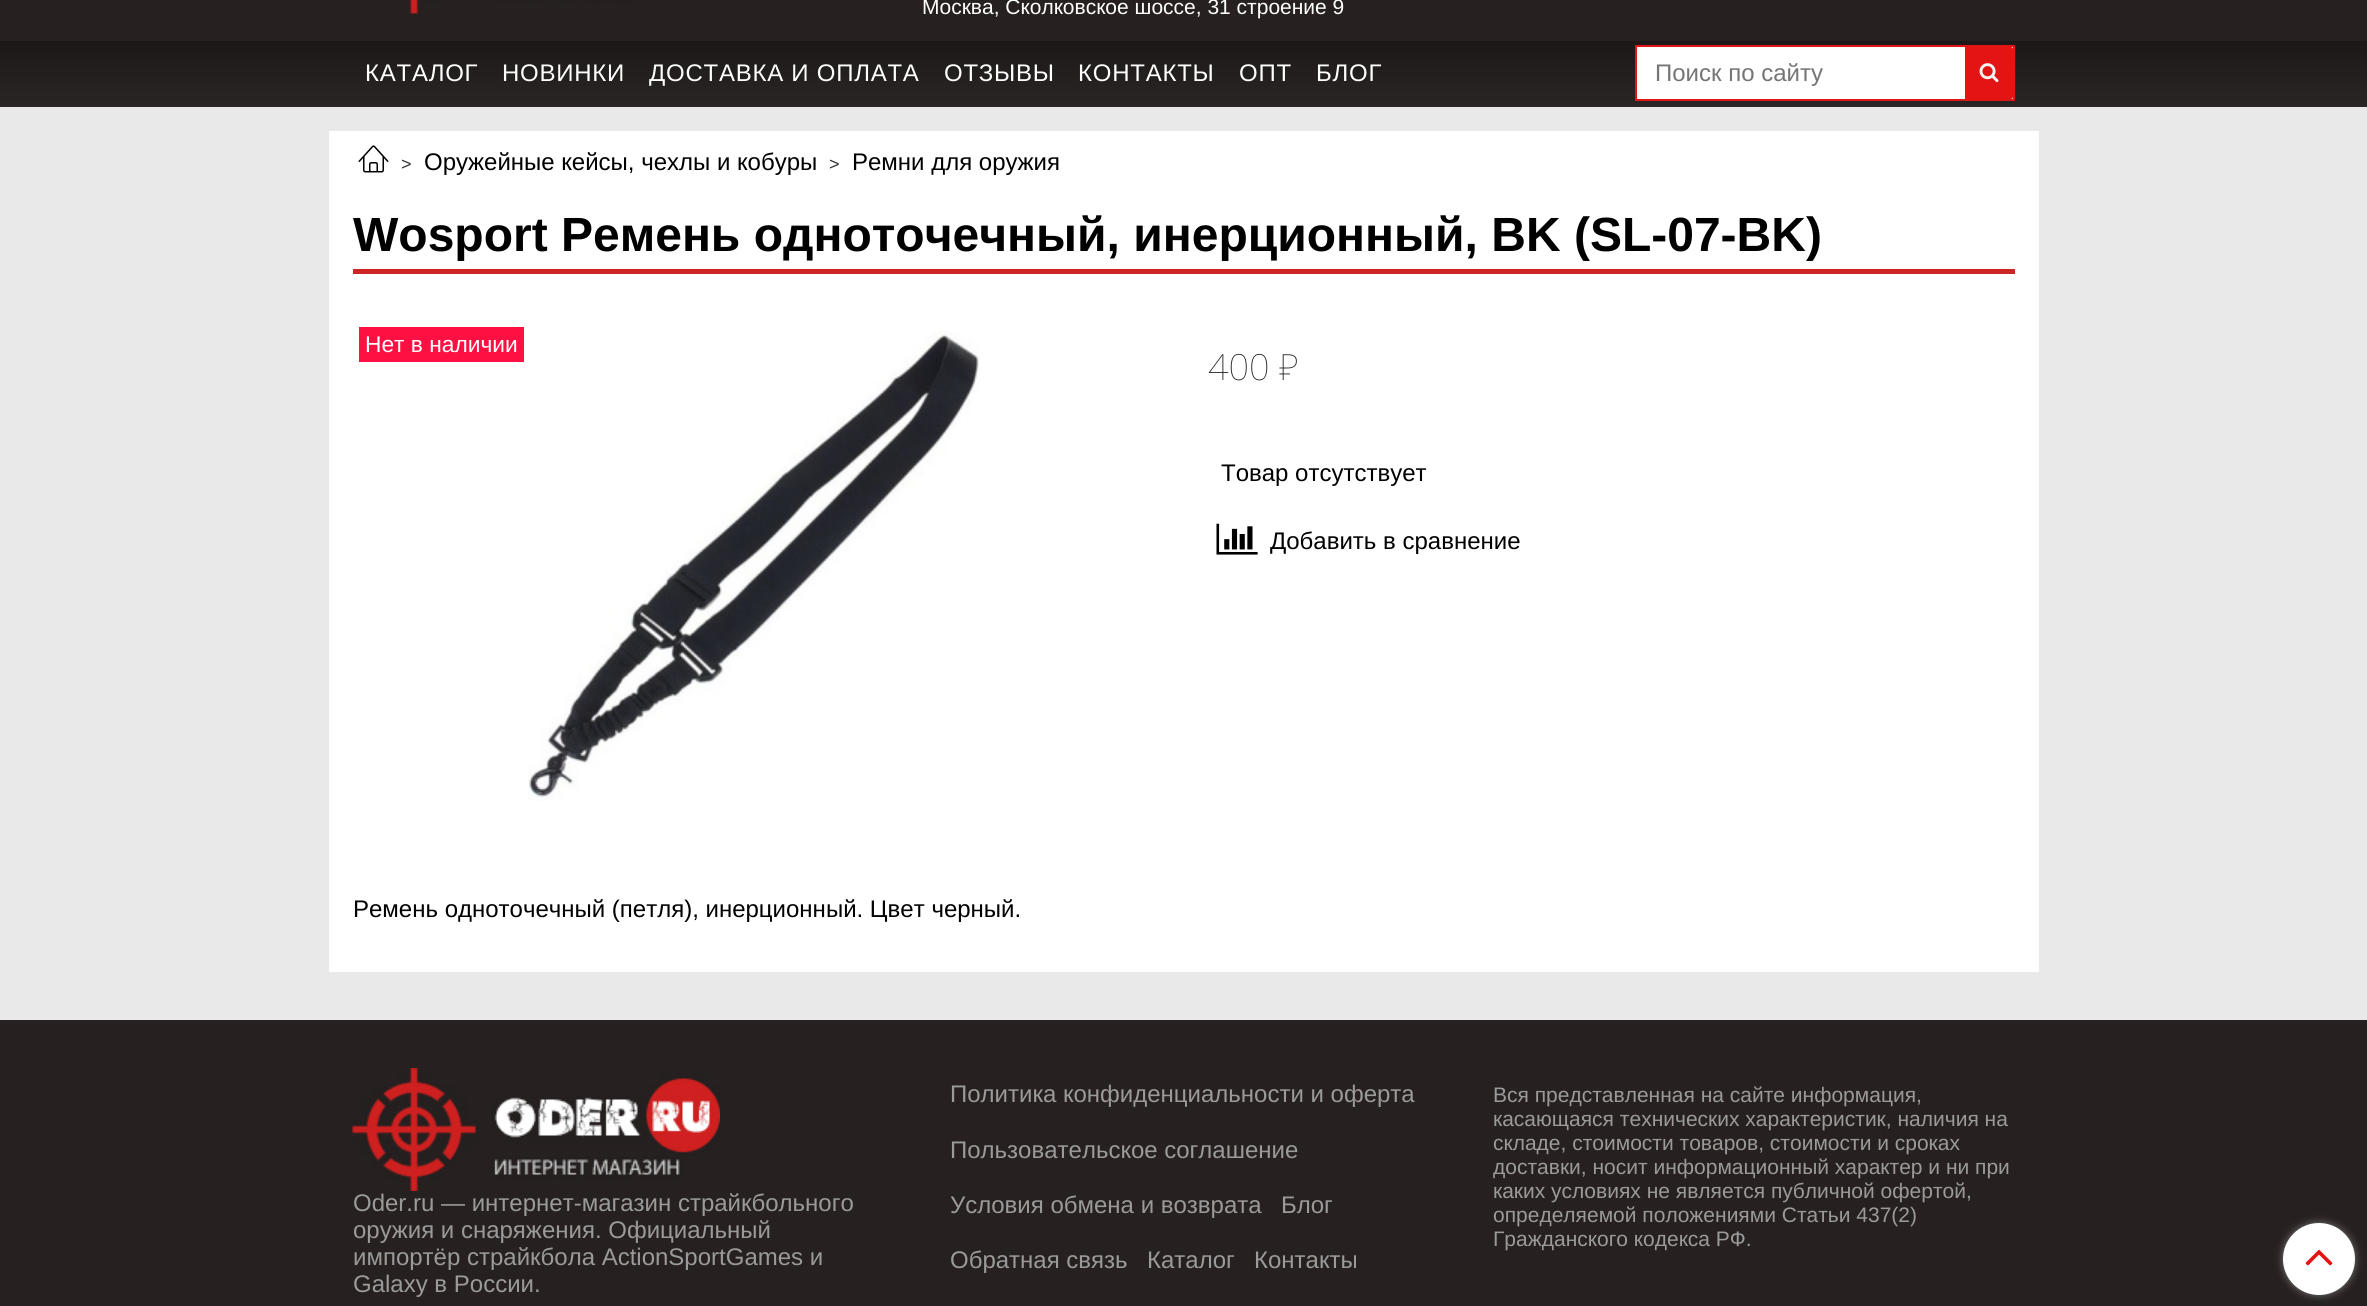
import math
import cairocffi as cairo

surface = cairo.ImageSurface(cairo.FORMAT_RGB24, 2367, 1306)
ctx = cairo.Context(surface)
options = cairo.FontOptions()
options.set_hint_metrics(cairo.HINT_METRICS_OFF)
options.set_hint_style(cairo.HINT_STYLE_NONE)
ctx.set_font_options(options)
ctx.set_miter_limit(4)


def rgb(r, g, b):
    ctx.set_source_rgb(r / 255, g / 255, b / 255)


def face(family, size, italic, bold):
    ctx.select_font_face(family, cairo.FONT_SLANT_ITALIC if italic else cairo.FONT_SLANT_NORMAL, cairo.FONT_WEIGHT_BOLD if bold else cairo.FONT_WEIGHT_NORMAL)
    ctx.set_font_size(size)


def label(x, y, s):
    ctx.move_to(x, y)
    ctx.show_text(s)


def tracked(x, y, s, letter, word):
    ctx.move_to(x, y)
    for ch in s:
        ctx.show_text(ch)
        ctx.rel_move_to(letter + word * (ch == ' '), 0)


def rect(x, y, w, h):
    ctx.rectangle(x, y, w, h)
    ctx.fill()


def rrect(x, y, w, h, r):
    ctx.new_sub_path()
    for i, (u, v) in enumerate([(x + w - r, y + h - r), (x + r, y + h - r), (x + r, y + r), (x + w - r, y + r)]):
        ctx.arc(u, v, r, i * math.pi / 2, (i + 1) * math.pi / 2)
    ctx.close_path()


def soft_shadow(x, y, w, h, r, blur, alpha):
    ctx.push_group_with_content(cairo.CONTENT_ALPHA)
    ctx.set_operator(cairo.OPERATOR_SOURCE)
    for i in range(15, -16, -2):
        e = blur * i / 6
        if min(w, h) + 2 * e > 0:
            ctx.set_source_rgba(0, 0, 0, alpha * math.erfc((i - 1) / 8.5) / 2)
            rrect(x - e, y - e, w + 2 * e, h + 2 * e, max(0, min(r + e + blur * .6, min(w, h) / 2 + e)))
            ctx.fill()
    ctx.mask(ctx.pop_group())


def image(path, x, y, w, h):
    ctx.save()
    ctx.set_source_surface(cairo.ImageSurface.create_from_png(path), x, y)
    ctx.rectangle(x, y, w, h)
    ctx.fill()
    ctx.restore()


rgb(233, 233, 233)
ctx.paint()
rgb(39, 32, 32)
rect(0, 0, 2367, 41)
image('image0.png', 404, 0, 236, 14)
face('Liberation Sans', 21, 0, 0)
rgb(255, 255, 255)
label(922, 14, 'Москва, Сколковское шоссе, 31 строение 9')
gradient = cairo.LinearGradient(1184, 40, 1184, 107)
gradient.add_color_stop_rgba(0, 0.11, 0.094, 0.09, 1)
gradient.add_color_stop_rgba(1, 0.165, 0.149, 0.145, 1)
ctx.set_source(gradient)
rect(0, 41, 2367, 66)
face('Liberation Sans', 24, 0, 0)
rgb(255, 255, 255)
tracked(365, 81, 'КАТАЛОГ', 0.75, 0)
tracked(502, 81, 'НОВИНКИ', 0.75, 0)
tracked(649, 81, 'ДОСТАВКА И ОПЛАТА', 0.75, 0)
tracked(944, 81, 'ОТЗЫВЫ', 0.75, 0)
tracked(1078, 81, 'КОНТАКТЫ', 0.75, 0)
tracked(1239, 81, 'ОПТ', 0.75, 0)
tracked(1316, 81, 'БЛОГ', 0.75, 0)
ctx.rectangle(1636, 46, 378, 54)
ctx.fill_preserve()
rgb(226, 20, 20)
ctx.stroke()
rgb(117, 117, 117)
label(1655, 81, 'Поиск по сайту')
rgb(226, 20, 20)
ctx.new_path()
ctx.move_to(1965, 47)
ctx.line_to(2011, 47)
ctx.curve_to(2012, 47, 2013, 48, 2013, 49)
ctx.line_to(2013, 97)
ctx.curve_to(2013, 98, 2012, 99, 2011, 99)
ctx.line_to(1965, 99)
ctx.close_path()
ctx.fill()
image('image1.png', 1979, 63, 20, 20)
rgb(255, 255, 255)
rect(329, 131, 1710, 841)
image('image2.png', 358, 145, 31, 28)
face('Liberation Sans', 18, 0, 0)
rgb(51, 51, 51)
label(401, 170, '>')
face('Liberation Sans', 24, 0, 0)
rgb(0, 0, 0)
label(424, 170, 'Оружейные кейсы, чехлы и кобуры')
face('Liberation Sans', 18, 0, 0)
rgb(51, 51, 51)
label(829, 170, '>')
face('Liberation Sans', 24, 0, 0)
rgb(0, 0, 0)
label(852, 170, 'Ремни для оружия')
rgb(205, 37, 36)
rect(353, 269, 1662, 5)
face('Liberation Sans', 48, 0, 1)
rgb(0, 0, 0)
label(353, 251, 'Wosport Ремень одноточечный, инерционный, BK (SL-07-BK)')
rgb(255, 16, 66)
rect(359, 327, 165, 35)
face('Liberation Sans', 22.75, 0, 0)
rgb(255, 255, 255)
label(365, 352, 'Нет в наличии')
image('image3.png', 528, 331, 453, 470)
face('Noto Sans Thin', 36, 0, 0)
rgb(40, 40, 40)
label(1208, 380, '400 ₽')
face('Liberation Sans', 24, 0, 0)
rgb(0, 0, 0)
label(1221, 481, 'Товар отсутствует')
image('image4.png', 1216, 523, 42, 32)
label(1270, 549, 'Добавить в сравнение')
label(353, 917, 'Ремень одноточечный (петля), инерционный. Цвет черный.')
rgb(39, 32, 32)
rect(0, 1020, 2367, 286)
image('image5.png', 352, 1068, 368, 123)
rgb(154, 154, 154)
label(353, 1211, 'Oder.ru — интернет-магазин страйкбольного')
label(353, 1238, 'оружия и снаряжения. Официальный')
label(353, 1265, 'импортёр страйкбола ActionSportGames и')
label(353, 1292, 'Galaxy в России.')
label(950, 1102, 'Политика конфиденциальности и оферта')
label(950, 1158, 'Пользовательское соглашение')
label(950, 1213, 'Условия обмена и возврата')
label(1281, 1213, 'Блог')
label(950, 1268, 'Обратная связь')
label(1147, 1268, 'Каталог')
label(1254, 1268, 'Контакты')
face('Liberation Sans', 21, 0, 0)
label(1493, 1102, 'Вся представленная на сайте информация,')
label(1493, 1126, 'касающаяся технических характеристик, наличия на')
label(1493, 1150, 'складе, стоимости товаров, стоимости и сроках')
label(1493, 1174, 'доставки, носит информационный характер и ни при')
label(1493, 1198, 'каких условиях не является публичной офертой,')
label(1493, 1222, 'определяемой положениями Статьи 437(2)')
label(1493, 1246, 'Гражданского кодекса РФ.')
rgb(119, 119, 119)
soft_shadow(2283, 1223, 72, 72, 36, 4, 1)
rgb(255, 255, 255)
ctx.arc(2319, 1259, 36, 0, 2 * math.pi)
ctx.fill()
image('image6.png', 2305, 1249, 28, 17)
surface.write_to_png('render.png')
